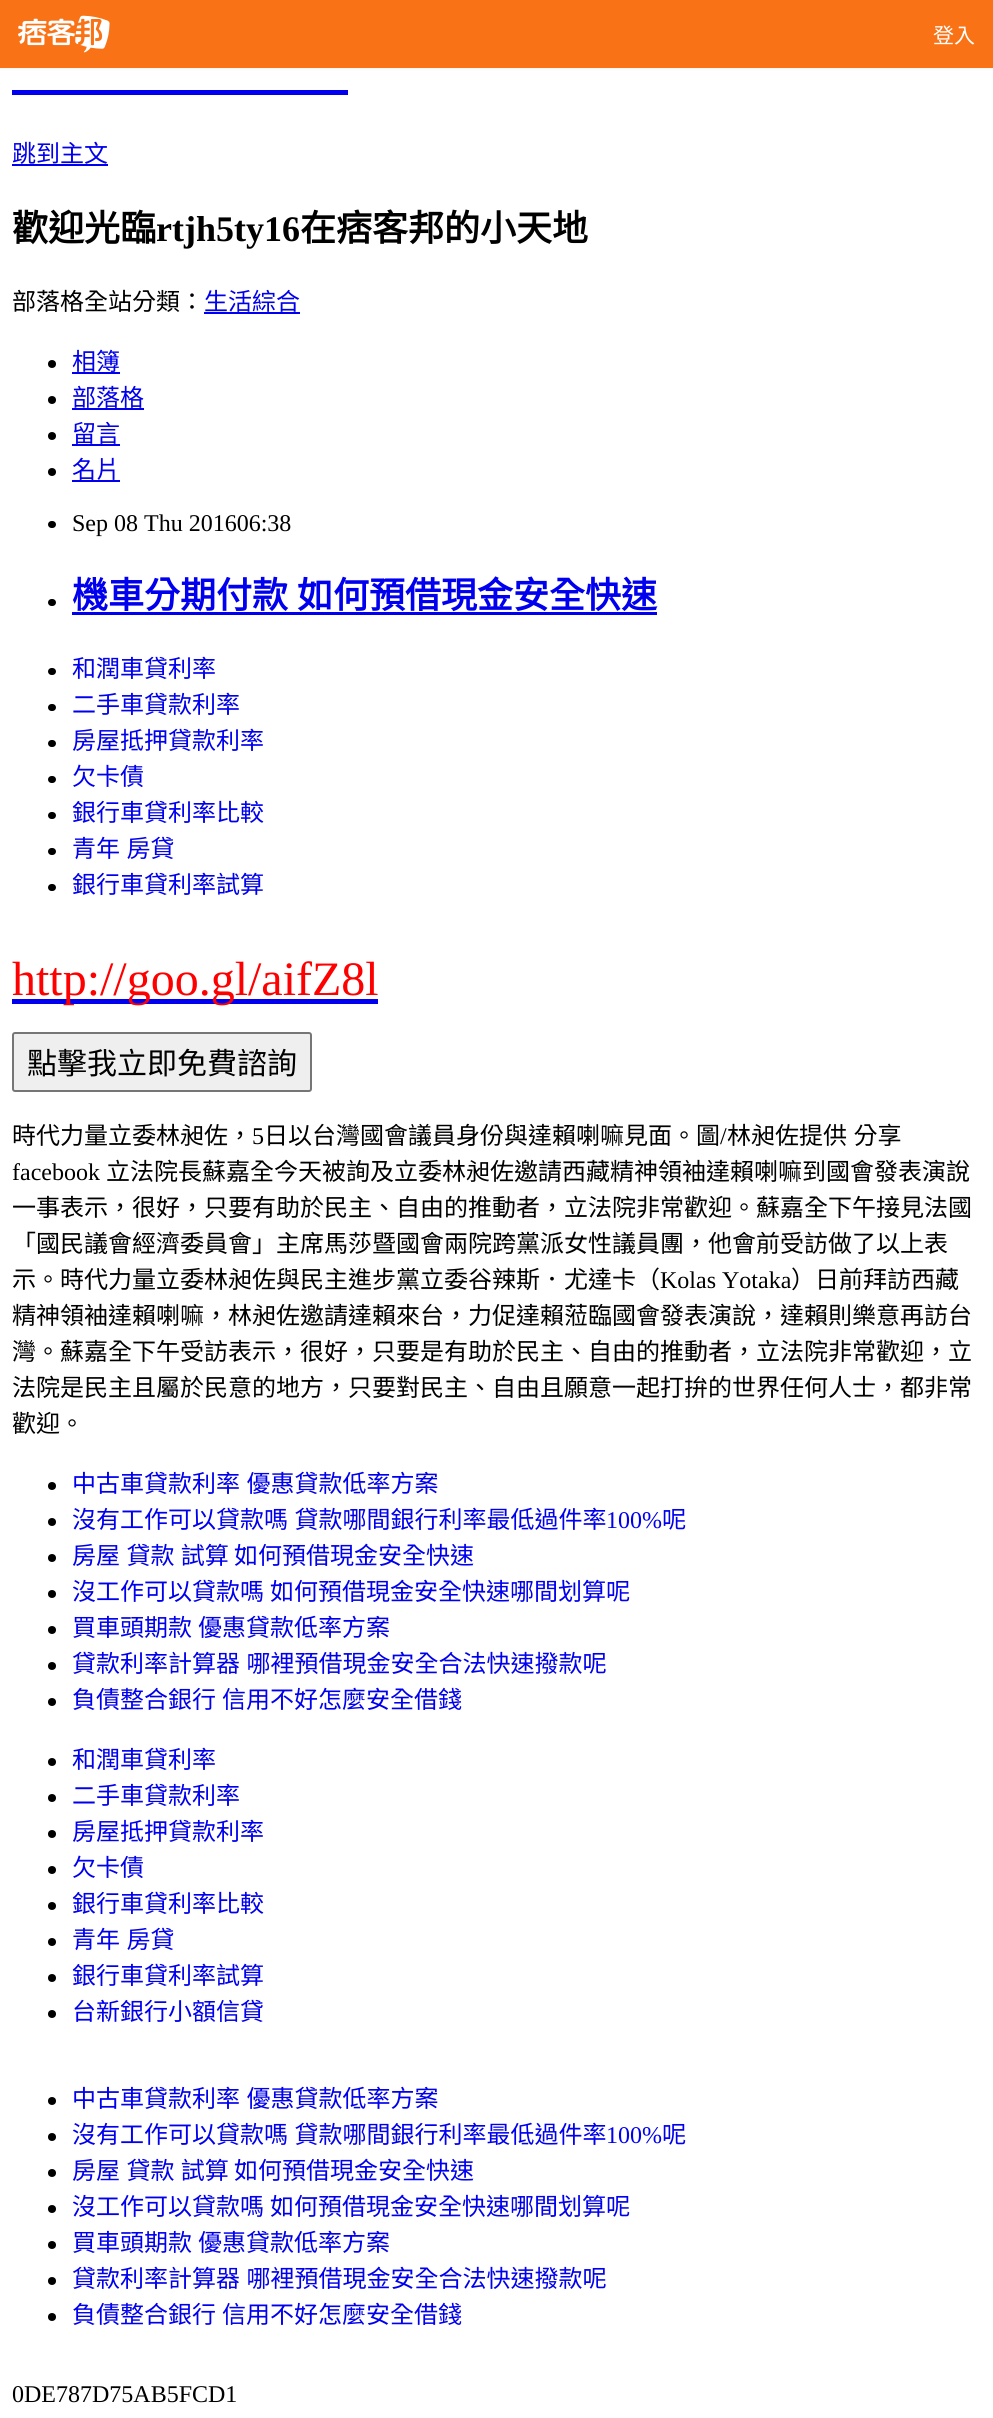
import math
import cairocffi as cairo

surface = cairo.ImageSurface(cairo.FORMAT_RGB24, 993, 2418)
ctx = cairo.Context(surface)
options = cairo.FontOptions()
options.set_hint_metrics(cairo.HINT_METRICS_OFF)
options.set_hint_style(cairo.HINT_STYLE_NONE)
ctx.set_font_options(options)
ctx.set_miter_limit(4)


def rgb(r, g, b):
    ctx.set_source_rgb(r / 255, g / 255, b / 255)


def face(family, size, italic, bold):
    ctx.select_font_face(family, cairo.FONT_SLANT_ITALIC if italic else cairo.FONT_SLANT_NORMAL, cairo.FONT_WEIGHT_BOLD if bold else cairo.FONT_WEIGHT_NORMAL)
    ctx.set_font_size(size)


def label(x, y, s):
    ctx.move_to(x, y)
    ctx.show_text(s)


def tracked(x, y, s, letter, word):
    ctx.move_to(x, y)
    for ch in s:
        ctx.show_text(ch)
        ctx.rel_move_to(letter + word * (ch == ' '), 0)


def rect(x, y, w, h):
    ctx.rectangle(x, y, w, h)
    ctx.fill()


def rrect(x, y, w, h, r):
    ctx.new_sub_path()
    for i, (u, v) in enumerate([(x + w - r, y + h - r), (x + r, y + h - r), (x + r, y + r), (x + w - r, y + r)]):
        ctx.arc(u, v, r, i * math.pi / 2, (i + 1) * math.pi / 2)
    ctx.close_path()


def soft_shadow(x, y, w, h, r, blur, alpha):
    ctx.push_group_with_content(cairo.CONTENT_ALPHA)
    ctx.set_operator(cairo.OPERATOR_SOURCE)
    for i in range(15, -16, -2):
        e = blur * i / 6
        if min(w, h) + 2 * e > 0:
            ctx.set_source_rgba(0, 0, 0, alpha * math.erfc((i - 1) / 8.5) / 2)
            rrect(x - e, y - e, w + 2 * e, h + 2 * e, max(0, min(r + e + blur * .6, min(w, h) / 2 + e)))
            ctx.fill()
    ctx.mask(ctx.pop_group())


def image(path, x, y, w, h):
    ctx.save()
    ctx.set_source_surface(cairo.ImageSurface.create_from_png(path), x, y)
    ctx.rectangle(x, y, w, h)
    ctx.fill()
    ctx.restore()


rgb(255, 255, 255)
ctx.paint()
rgb(0, 0, 0)
soft_shadow(0, 2, 993, 67, 0, 1.5, 0.05)
rgb(249, 115, 22)
rect(0, 0, 993, 68)
image('image0.png', 18, 15, 92, 38)
face('Noto Sans CJK TC', 21, 0, 0)
rgb(255, 255, 255)
label(933, 43, '登入')
rgb(0, 0, 238)
rect(12, 90, 336, 5)
face('Noto Sans CJK TC', 24, 0, 0)
label(12, 162, '跳到主文')
rect(12, 164, 96, 2)
face('Noto Sans CJK TC', 36, 0, 1)
rgb(0, 0, 0)
label(12, 241, '歡迎光臨')
face('Liberation Serif', 36, 0, 1)
label(156, 241, 'rtjh5ty16')
face('Noto Sans CJK TC', 36, 0, 1)
label(300, 241, '在痞客邦的小天地')
face('Noto Sans CJK TC', 24, 0, 0)
label(12, 310, '部落格全站分類：')
rgb(0, 0, 238)
label(204, 310, '生活綜合')
rect(204, 312, 96, 2)
rgb(0, 0, 0)
ctx.new_path()
ctx.arc(52, 364, 4, 0, 2 * math.pi)
ctx.fill()
rgb(0, 0, 238)
label(72, 370, '相簿')
rect(72, 372, 48, 2)
rgb(0, 0, 0)
ctx.new_path()
ctx.arc(52, 400, 4, 0, 2 * math.pi)
ctx.fill()
rgb(0, 0, 238)
label(72, 406, '部落格')
rect(72, 408, 72, 2)
rgb(0, 0, 0)
ctx.new_path()
ctx.arc(52, 436, 4, 0, 2 * math.pi)
ctx.fill()
rgb(0, 0, 238)
label(72, 442, '留言')
rect(72, 444, 48, 2)
rgb(0, 0, 0)
ctx.new_path()
ctx.arc(52, 472, 4, 0, 2 * math.pi)
ctx.fill()
rgb(0, 0, 238)
label(72, 478, '名片')
rect(72, 480, 48, 2)
rgb(0, 0, 0)
rrect(48, 521, 8, 7, 3.5)
ctx.fill()
face('Liberation Serif', 24, 0, 0)
label(72, 531, 'Sep 08 Thu 201606:38')
rrect(48, 599, 8, 7, 3.5)
ctx.fill()
face('Noto Sans CJK TC', 36, 0, 1)
rgb(0, 0, 238)
label(72, 608, '機車分期付款')
rect(72, 612, 585, 3)
label(297, 608, '如何預借現金安全快速')
rgb(0, 0, 0)
rrect(48, 668, 8, 7, 3.5)
ctx.fill()
face('Noto Sans CJK TC', 24, 0, 0)
rgb(0, 0, 238)
label(72, 677, '和潤車貸利率')
rgb(0, 0, 0)
rrect(48, 704, 8, 7, 3.5)
ctx.fill()
rgb(0, 0, 238)
label(72, 713, '二手車貸款利率')
rgb(0, 0, 0)
rrect(48, 740, 8, 7, 3.5)
ctx.fill()
rgb(0, 0, 238)
label(72, 749, '房屋抵押貸款利率')
rgb(0, 0, 0)
rrect(48, 776, 8, 7, 3.5)
ctx.fill()
rgb(0, 0, 238)
label(72, 785, '欠卡債')
rgb(0, 0, 0)
rrect(48, 812, 8, 7, 3.5)
ctx.fill()
rgb(0, 0, 238)
label(72, 821, '銀行車貸利率比較')
rgb(0, 0, 0)
rrect(48, 848, 8, 7, 3.5)
ctx.fill()
rgb(0, 0, 238)
tracked(72, 857, '青年 房貸', 0, 1)
rgb(0, 0, 0)
rrect(48, 884, 8, 7, 3.5)
ctx.fill()
rgb(0, 0, 238)
label(72, 893, '銀行車貸利率試算')
rect(12, 999, 366, 5)
face('Liberation Serif', 48, 0, 0)
rgb(255, 0, 0)
label(12, 995, 'http://goo.gl/aifZ8l')
rgb(239, 239, 239)
rrect(13, 1033, 298, 58, 2)
ctx.fill_preserve()
rgb(118, 118, 118)
ctx.stroke()
face('Noto Sans CJK TC', 30, 0, 0)
rgb(0, 0, 0)
label(27, 1074, '點擊我立即免費諮詢')
face('Noto Sans CJK TC', 24, 0, 0)
label(12, 1144, '時代力量立委林昶佐，')
face('Liberation Serif', 24, 0, 0)
label(252, 1144, '5')
face('Noto Sans CJK TC', 24, 0, 0)
label(264, 1144, '日以台灣國會議員身份與達賴喇嘛見面。圖')
face('Liberation Serif', 24, 0, 0)
label(720, 1144, '/')
face('Noto Sans CJK TC', 24, 0, 0)
tracked(727, 1144, '林昶佐提供 分享', 0, 1)
face('Liberation Serif', 24, 0, 0)
label(12, 1180, 'facebook')
face('Noto Sans CJK TC', 24, 0, 0)
label(106, 1180, '立法院長蘇嘉全今天被詢及立委林昶佐邀請西藏精神領袖達賴喇嘛到國會發表演說')
label(12, 1216, '一事表示，很好，只要有助於民主、自由的推動者，立法院非常歡迎。蘇嘉全下午接見法國')
label(12, 1252, '「國民議會經濟委員會」主席馬莎暨國會兩院跨黨派女性議員團，他會前受訪做了以上表')
label(12, 1288, '示。時代力量立委林昶佐與民主進步黨立委谷辣斯．尤達卡（')
face('Liberation Serif', 24, 0, 0)
label(660, 1288, 'Kolas Yotaka')
face('Noto Sans CJK TC', 24, 0, 0)
label(791, 1288, '）日前拜訪西藏')
label(12, 1324, '精神領袖達賴喇嘛，林昶佐邀請達賴來台，力促達賴蒞臨國會發表演說，達賴則樂意再訪台')
label(12, 1360, '灣。蘇嘉全下午受訪表示，很好，只要是有助於民主、自由的推動者，立法院非常歡迎，立')
label(12, 1396, '法院是民主且屬於民意的地方，只要對民主、自由且願意一起打拚的世界任何人士，都非常')
label(12, 1432, '歡迎。')
ctx.new_path()
ctx.arc(52, 1486, 4, 0, 2 * math.pi)
ctx.fill()
rgb(0, 0, 238)
tracked(72, 1492, '中古車貸款利率 優惠貸款低率方案', 0, 1)
rgb(0, 0, 0)
ctx.new_path()
ctx.arc(52, 1522, 4, 0, 2 * math.pi)
ctx.fill()
rgb(0, 0, 238)
tracked(72, 1528, '沒有工作可以貸款嗎 貸款哪間銀行利率最低過件率', 0, 1)
face('Liberation Serif', 24, 0, 0)
label(606, 1528, '100%')
face('Noto Sans CJK TC', 24, 0, 0)
label(662, 1528, '呢')
rgb(0, 0, 0)
ctx.new_path()
ctx.arc(52, 1558, 4, 0, 2 * math.pi)
ctx.fill()
rgb(0, 0, 238)
tracked(72, 1564, '房屋 貸款 試算', 0, 1)
label(234, 1564, '如何預借現金安全快速')
rgb(0, 0, 0)
ctx.new_path()
ctx.arc(52, 1594, 4, 0, 2 * math.pi)
ctx.fill()
rgb(0, 0, 238)
label(72, 1600, '沒工作可以貸款嗎')
label(270, 1600, '如何預借現金安全快速哪間划算呢')
rgb(0, 0, 0)
ctx.new_path()
ctx.arc(52, 1630, 4, 0, 2 * math.pi)
ctx.fill()
rgb(0, 0, 238)
label(72, 1636, '買車頭期款')
label(198, 1636, '優惠貸款低率方案')
rgb(0, 0, 0)
ctx.new_path()
ctx.arc(52, 1666, 4, 0, 2 * math.pi)
ctx.fill()
rgb(0, 0, 238)
tracked(72, 1672, '貸款利率計算器 哪裡預借現金安全合法快速撥款呢', 0, 1)
rgb(0, 0, 0)
ctx.new_path()
ctx.arc(52, 1702, 4, 0, 2 * math.pi)
ctx.fill()
rgb(0, 0, 238)
label(72, 1708, '負債整合銀行')
label(222, 1708, '信用不好怎麼安全借錢')
rgb(0, 0, 0)
ctx.new_path()
ctx.arc(52, 1762, 4, 0, 2 * math.pi)
ctx.fill()
rgb(0, 0, 238)
label(72, 1768, '和潤車貸利率')
rgb(0, 0, 0)
ctx.new_path()
ctx.arc(52, 1798, 4, 0, 2 * math.pi)
ctx.fill()
rgb(0, 0, 238)
label(72, 1804, '二手車貸款利率')
rgb(0, 0, 0)
ctx.new_path()
ctx.arc(52, 1834, 4, 0, 2 * math.pi)
ctx.fill()
rgb(0, 0, 238)
label(72, 1840, '房屋抵押貸款利率')
rgb(0, 0, 0)
ctx.new_path()
ctx.arc(52, 1870, 4, 0, 2 * math.pi)
ctx.fill()
rgb(0, 0, 238)
label(72, 1876, '欠卡債')
rgb(0, 0, 0)
ctx.new_path()
ctx.arc(52, 1906, 4, 0, 2 * math.pi)
ctx.fill()
rgb(0, 0, 238)
label(72, 1912, '銀行車貸利率比較')
rgb(0, 0, 0)
ctx.new_path()
ctx.arc(52, 1942, 4, 0, 2 * math.pi)
ctx.fill()
rgb(0, 0, 238)
tracked(72, 1948, '青年 房貸', 0, 1)
rgb(0, 0, 0)
ctx.new_path()
ctx.arc(52, 1978, 4, 0, 2 * math.pi)
ctx.fill()
rgb(0, 0, 238)
label(72, 1984, '銀行車貸利率試算')
rgb(0, 0, 0)
ctx.new_path()
ctx.arc(52, 2014, 4, 0, 2 * math.pi)
ctx.fill()
rgb(0, 0, 238)
label(72, 2020, '台新銀行小額信貸')
rgb(0, 0, 0)
ctx.new_path()
ctx.arc(52, 2101, 4, 0, 2 * math.pi)
ctx.fill()
rgb(0, 0, 238)
tracked(72, 2107, '中古車貸款利率 優惠貸款低率方案', 0, 1)
rgb(0, 0, 0)
ctx.new_path()
ctx.arc(52, 2137, 4, 0, 2 * math.pi)
ctx.fill()
rgb(0, 0, 238)
tracked(72, 2143, '沒有工作可以貸款嗎 貸款哪間銀行利率最低過件率', 0, 1)
face('Liberation Serif', 24, 0, 0)
label(606, 2143, '100%')
face('Noto Sans CJK TC', 24, 0, 0)
label(662, 2143, '呢')
rgb(0, 0, 0)
ctx.new_path()
ctx.arc(52, 2173, 4, 0, 2 * math.pi)
ctx.fill()
rgb(0, 0, 238)
tracked(72, 2179, '房屋 貸款 試算', 0, 1)
label(234, 2179, '如何預借現金安全快速')
rgb(0, 0, 0)
ctx.new_path()
ctx.arc(52, 2209, 4, 0, 2 * math.pi)
ctx.fill()
rgb(0, 0, 238)
label(72, 2215, '沒工作可以貸款嗎')
label(270, 2215, '如何預借現金安全快速哪間划算呢')
rgb(0, 0, 0)
ctx.new_path()
ctx.arc(52, 2245, 4, 0, 2 * math.pi)
ctx.fill()
rgb(0, 0, 238)
label(72, 2251, '買車頭期款')
label(198, 2251, '優惠貸款低率方案')
rgb(0, 0, 0)
ctx.new_path()
ctx.arc(52, 2281, 4, 0, 2 * math.pi)
ctx.fill()
rgb(0, 0, 238)
tracked(72, 2287, '貸款利率計算器 哪裡預借現金安全合法快速撥款呢', 0, 1)
rgb(0, 0, 0)
ctx.new_path()
ctx.arc(52, 2317, 4, 0, 2 * math.pi)
ctx.fill()
rgb(0, 0, 238)
label(72, 2323, '負債整合銀行')
label(222, 2323, '信用不好怎麼安全借錢')
face('Liberation Serif', 24, 0, 0)
rgb(0, 0, 0)
label(12, 2402, '0DE787D75AB5FCD1')
surface.write_to_png('render.png')
